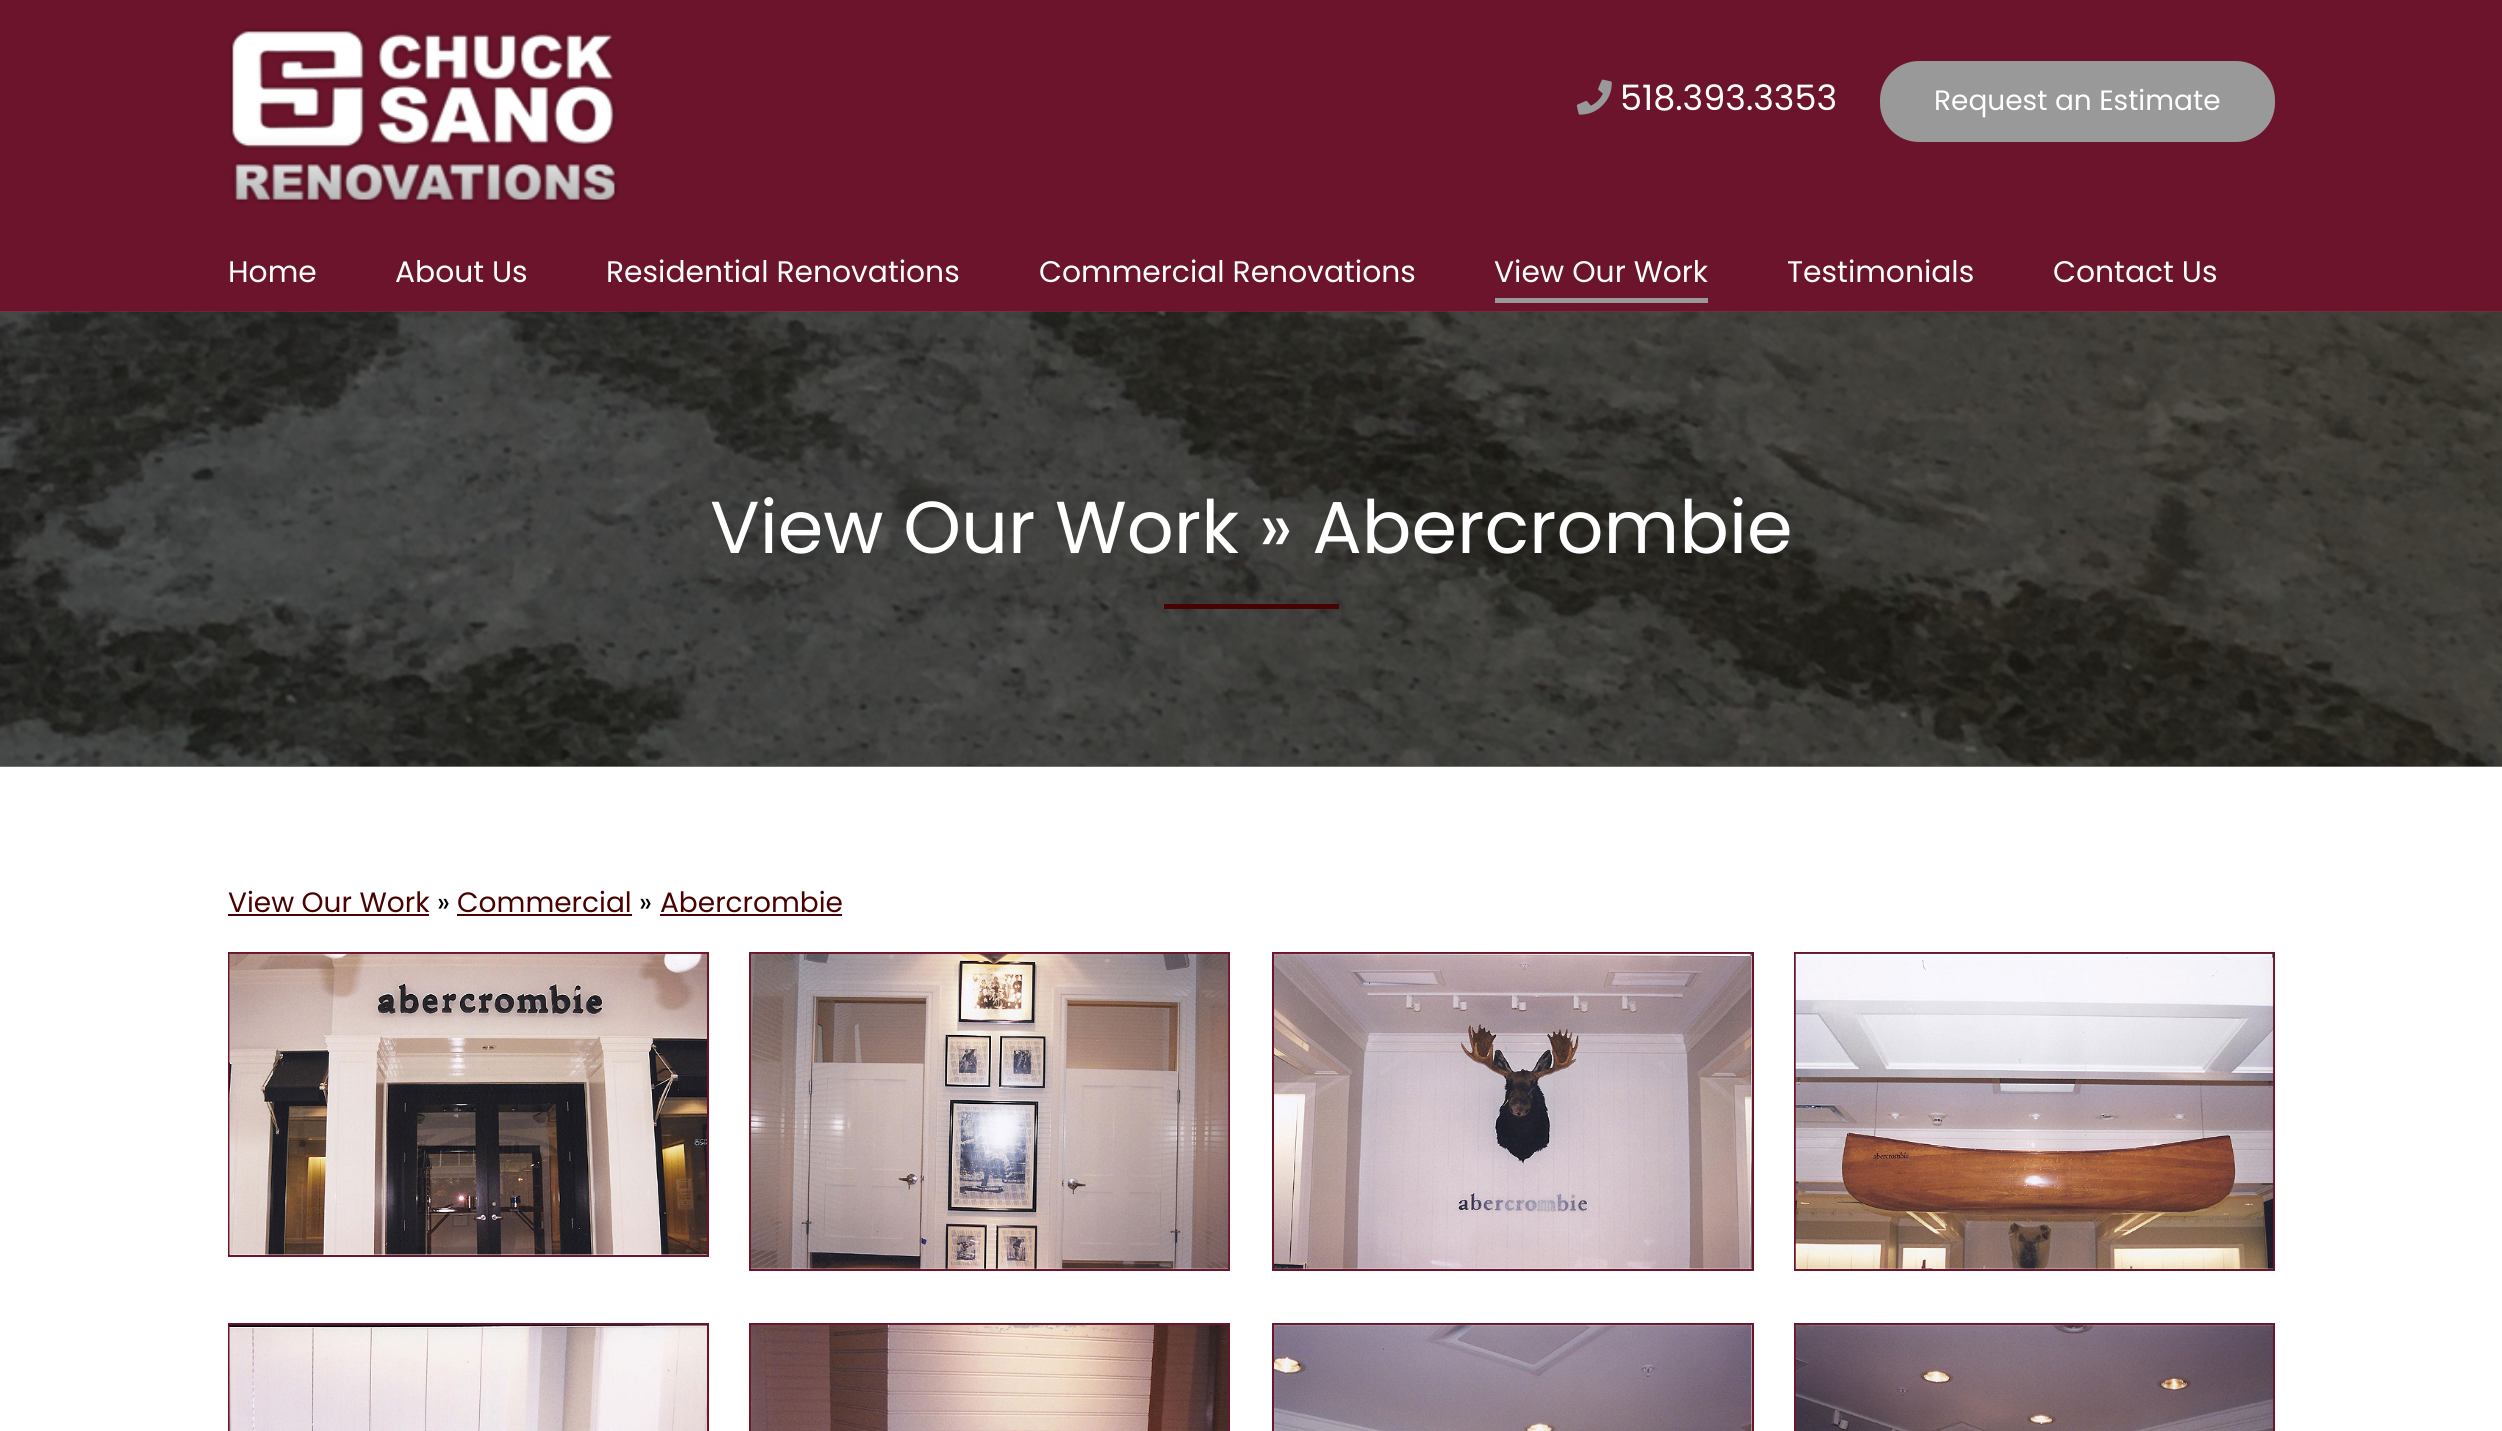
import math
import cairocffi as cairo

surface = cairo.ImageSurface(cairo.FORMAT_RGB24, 2502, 1431)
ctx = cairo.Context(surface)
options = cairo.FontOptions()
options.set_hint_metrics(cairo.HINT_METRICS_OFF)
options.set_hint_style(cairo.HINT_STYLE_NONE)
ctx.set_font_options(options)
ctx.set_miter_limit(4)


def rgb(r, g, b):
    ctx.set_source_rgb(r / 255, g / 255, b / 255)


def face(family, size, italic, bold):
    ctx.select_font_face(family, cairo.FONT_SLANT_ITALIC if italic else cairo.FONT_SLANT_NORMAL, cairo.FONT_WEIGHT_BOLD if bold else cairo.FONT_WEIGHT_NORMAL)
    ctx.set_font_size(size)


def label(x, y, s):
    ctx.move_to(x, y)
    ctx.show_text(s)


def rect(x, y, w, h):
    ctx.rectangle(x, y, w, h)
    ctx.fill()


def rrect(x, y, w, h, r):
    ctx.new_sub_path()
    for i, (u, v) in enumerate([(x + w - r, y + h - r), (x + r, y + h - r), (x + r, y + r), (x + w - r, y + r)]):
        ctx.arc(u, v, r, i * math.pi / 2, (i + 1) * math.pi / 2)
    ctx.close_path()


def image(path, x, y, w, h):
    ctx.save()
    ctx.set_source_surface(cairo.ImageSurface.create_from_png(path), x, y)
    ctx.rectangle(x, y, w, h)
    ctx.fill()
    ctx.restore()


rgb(255, 255, 255)
ctx.paint()
rgb(128, 128, 128)
rect(0, 766, 2502, 1)
rgb(108, 20, 43)
rect(0, 0, 2502, 312)
image('image0.png', 229, 28, 390, 176)
image('image1.png', 1576, 79, 36, 36)
face('Poppins', 35, 0, 0)
rgb(255, 255, 255)
label(1620, 110, '518.393.3353')
rgb(153, 153, 153)
rrect(1881, 62, 393, 79, 38)
ctx.fill_preserve()
ctx.stroke()
face('Poppins', 28, 0, 0)
rgb(255, 255, 255)
label(1934, 110, 'Request an Estimate')
face('Poppins', 29.75, 0, 0)
label(228, 282, 'Home')
label(395, 282, 'About Us')
label(606, 282, 'Residential Renovations')
label(1039, 282, 'Commercial Renovations')
label(1494, 282, 'View Our Work')
rgb(153, 153, 153)
rect(1495, 298, 213, 5)
rgb(255, 255, 255)
label(1787, 282, 'Testimonials')
label(2053, 282, 'Contact Us')
image('image2.png', 0, 311, 2502, 456)
face('Poppins', 73.5, 0, 0)
label(710, 553, 'View Our Work » Abercrombie')
rgb(73, 2, 2)
rect(1164, 604, 175, 5)
face('Poppins', 28, 0, 0)
label(228, 912, 'View Our Work')
rect(228, 914, 201, 2)
rgb(0, 0, 0)
label(437, 912, '»')
rgb(73, 2, 2)
label(457, 912, 'Commercial')
rect(457, 914, 175, 2)
rgb(0, 0, 0)
label(639, 912, '»')
rgb(73, 2, 2)
label(660, 912, 'Abercrombie')
rect(660, 914, 182, 2)
ctx.rectangle(229, 953, 479, 303)
rgb(108, 20, 43)
ctx.stroke()
image('image3.png', 229, 953, 478, 302)
ctx.rectangle(750, 953, 479, 317)
ctx.stroke()
image('image4.png', 750, 953, 479, 316)
ctx.rectangle(1273, 953, 480, 317)
ctx.stroke()
image('image5.png', 1274, 953, 478, 316)
ctx.rectangle(1795, 953, 479, 317)
ctx.stroke()
image('image6.png', 1795, 953, 479, 316)
ctx.rectangle(229, 1324, 479, 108)
ctx.stroke()
image('image7.png', 229, 1324, 478, 107)
ctx.rectangle(750, 1324, 479, 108)
ctx.stroke()
image('image8.png', 750, 1324, 479, 107)
ctx.rectangle(1273, 1324, 480, 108)
ctx.stroke()
image('image9.png', 1274, 1324, 478, 107)
ctx.rectangle(1795, 1324, 479, 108)
ctx.stroke()
image('image10.png', 1795, 1324, 479, 107)
surface.write_to_png('render.png')
